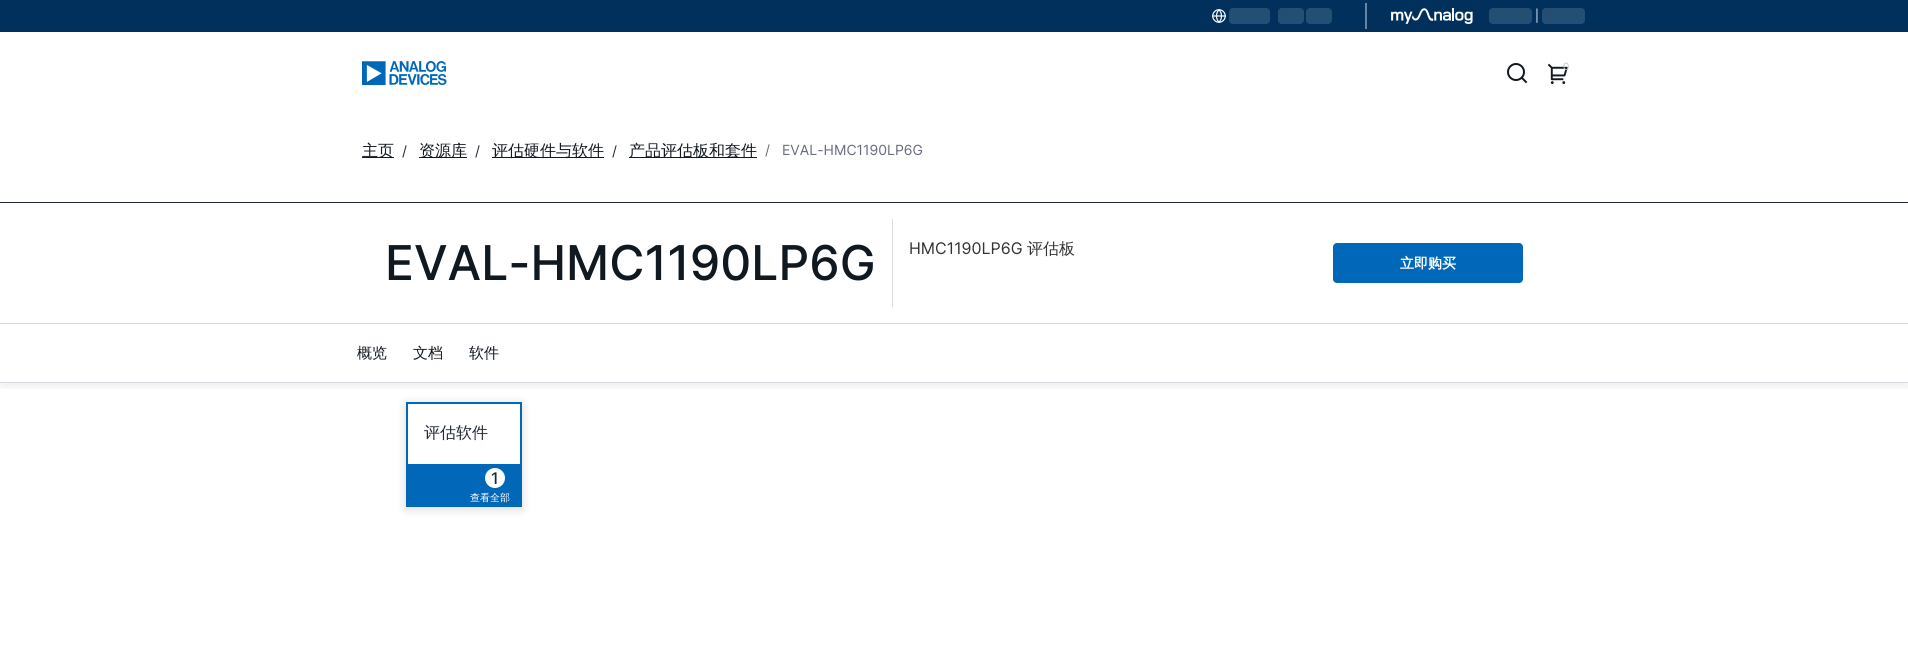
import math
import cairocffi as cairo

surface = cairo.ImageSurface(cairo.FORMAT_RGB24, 1908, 669)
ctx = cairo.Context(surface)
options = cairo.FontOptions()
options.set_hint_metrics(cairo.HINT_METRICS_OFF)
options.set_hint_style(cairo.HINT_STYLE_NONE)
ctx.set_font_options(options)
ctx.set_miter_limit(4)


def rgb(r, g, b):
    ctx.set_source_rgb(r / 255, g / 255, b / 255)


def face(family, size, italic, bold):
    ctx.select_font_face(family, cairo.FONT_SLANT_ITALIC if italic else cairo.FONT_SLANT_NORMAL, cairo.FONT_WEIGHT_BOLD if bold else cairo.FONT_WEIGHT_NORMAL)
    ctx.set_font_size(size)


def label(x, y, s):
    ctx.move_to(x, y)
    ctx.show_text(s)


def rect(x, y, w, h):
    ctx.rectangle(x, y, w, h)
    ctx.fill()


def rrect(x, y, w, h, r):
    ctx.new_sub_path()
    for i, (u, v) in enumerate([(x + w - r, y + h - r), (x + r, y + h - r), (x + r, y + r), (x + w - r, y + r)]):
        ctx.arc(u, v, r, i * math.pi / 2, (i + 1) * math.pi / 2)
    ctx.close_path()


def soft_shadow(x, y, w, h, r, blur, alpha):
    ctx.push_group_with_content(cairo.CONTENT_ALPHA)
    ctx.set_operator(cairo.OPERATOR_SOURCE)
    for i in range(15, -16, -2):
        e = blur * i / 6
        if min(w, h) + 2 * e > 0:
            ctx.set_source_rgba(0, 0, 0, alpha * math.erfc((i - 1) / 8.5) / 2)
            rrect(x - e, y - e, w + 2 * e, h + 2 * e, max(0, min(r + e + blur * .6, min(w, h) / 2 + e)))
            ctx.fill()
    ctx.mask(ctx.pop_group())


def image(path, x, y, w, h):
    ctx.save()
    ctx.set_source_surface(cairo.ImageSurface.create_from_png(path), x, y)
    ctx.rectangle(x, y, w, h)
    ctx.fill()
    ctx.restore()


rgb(255, 255, 255)
ctx.paint()
rgb(0, 48, 91)
rect(0, 0, 1908, 32)
image('image0.png', 1212, 9, 14, 14)
rgb(37, 78, 115)
rrect(1229, 8, 41, 16, 4)
ctx.fill()
rrect(1278, 8, 26, 16, 4)
ctx.fill()
rrect(1306, 8, 26, 16, 4)
ctx.fill()
rgb(107, 132, 156)
rect(1365, 3, 2, 26)
image('image1.png', 1391, 8, 82, 16)
rgb(37, 78, 115)
rrect(1489, 8, 43, 16, 4)
ctx.fill()
face('Inter', 12, 0, 0)
rgb(255, 255, 255)
label(1535, 20, '|')
rgb(37, 78, 115)
rrect(1542, 8, 43, 16, 4)
ctx.fill()
image('image2.png', 362, 61, 85, 24)
image('image3.png', 1507, 63, 21, 21)
image('image4.png', 1547, 63, 21, 21)
face('Inter', 10, 0, 0)
rgb(191, 193, 195)
label(1563, 70, '0')
rgb(16, 24, 32)
rect(362, 157, 32, 1)
face('WenQuanYi Zen Hei Medium', 16, 0, 0)
label(362, 156, '主页')
face('Inter', 14, 0, 0)
rgb(33, 40, 54)
label(402, 156, '/')
rgb(16, 24, 32)
rect(419, 157, 48, 1)
face('WenQuanYi Zen Hei Medium', 16, 0, 0)
label(419, 156, '资源库')
face('Inter', 14, 0, 0)
rgb(33, 40, 54)
label(475, 156, '/')
rgb(16, 24, 32)
rect(492, 157, 112, 1)
face('WenQuanYi Zen Hei Medium', 16, 0, 0)
label(492, 156, '评估硬件与软件')
face('Inter', 14, 0, 0)
rgb(33, 40, 54)
label(612, 156, '/')
rgb(16, 24, 32)
rect(629, 157, 128, 1)
face('WenQuanYi Zen Hei Medium', 16, 0, 0)
label(629, 156, '产品评估板和套件')
face('Inter', 14, 0, 0)
rgb(104, 108, 125)
label(765, 155, '/')
label(782, 155, 'EVAL-HMC1190LP6G')
rgb(33, 40, 54)
rect(0, 202, 1908, 1)
face('Inter Medium', 48, 0, 0)
rgb(16, 24, 32)
label(385, 280, 'EVAL-HMC1190LP6G')
rgb(218, 218, 218)
rect(892, 219, 1, 88)
face('Inter', 16, 0, 0)
rgb(51, 51, 51)
label(909, 254, 'HMC1190LP6G')
face('WenQuanYi Zen Hei Medium', 16, 0, 0)
label(1027, 254, '评估板')
rgb(0, 103, 185)
rrect(1333, 243, 190, 40, 4)
ctx.fill()
face('WenQuanYi Zen Hei', 14, 0, 1)
rgb(255, 255, 255)
label(1400, 268, '立即购买')
ctx.save()
ctx.rectangle(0, 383, 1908, 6)
ctx.clip()
rgb(34, 37, 47)
soft_shadow(0, 328, 1908, 60, 0, 2.5, 0.06)
ctx.restore()
rgb(213, 216, 220)
rect(0, 323, 1908, 1)
rect(0, 382, 1908, 1)
face('WenQuanYi Zen Hei Medium', 15, 0, 0)
rgb(16, 24, 32)
label(357, 358, '概览')
label(413, 358, '文档')
label(469, 358, '软件')
rgb(0, 0, 0)
soft_shadow(406, 404, 116, 105, 0, 5, 0.15)
rgb(0, 103, 185)
rect(406, 402, 116, 105)
rgb(255, 255, 255)
rect(408, 404, 112, 60)
face('WenQuanYi Zen Hei Medium', 16, 0, 0)
rgb(33, 40, 54)
label(424, 438, '评估软件')
rgb(255, 255, 255)
ctx.new_path()
ctx.arc(495, 478, 10, 0, 2 * math.pi)
ctx.fill()
face('Inter Medium', 16, 0, 0)
rgb(33, 40, 54)
label(491, 484, '1')
face('WenQuanYi Zen Hei Medium', 10, 0, 0)
rgb(255, 255, 255)
label(470, 501, '查看全部')
surface.write_to_png('render.png')
